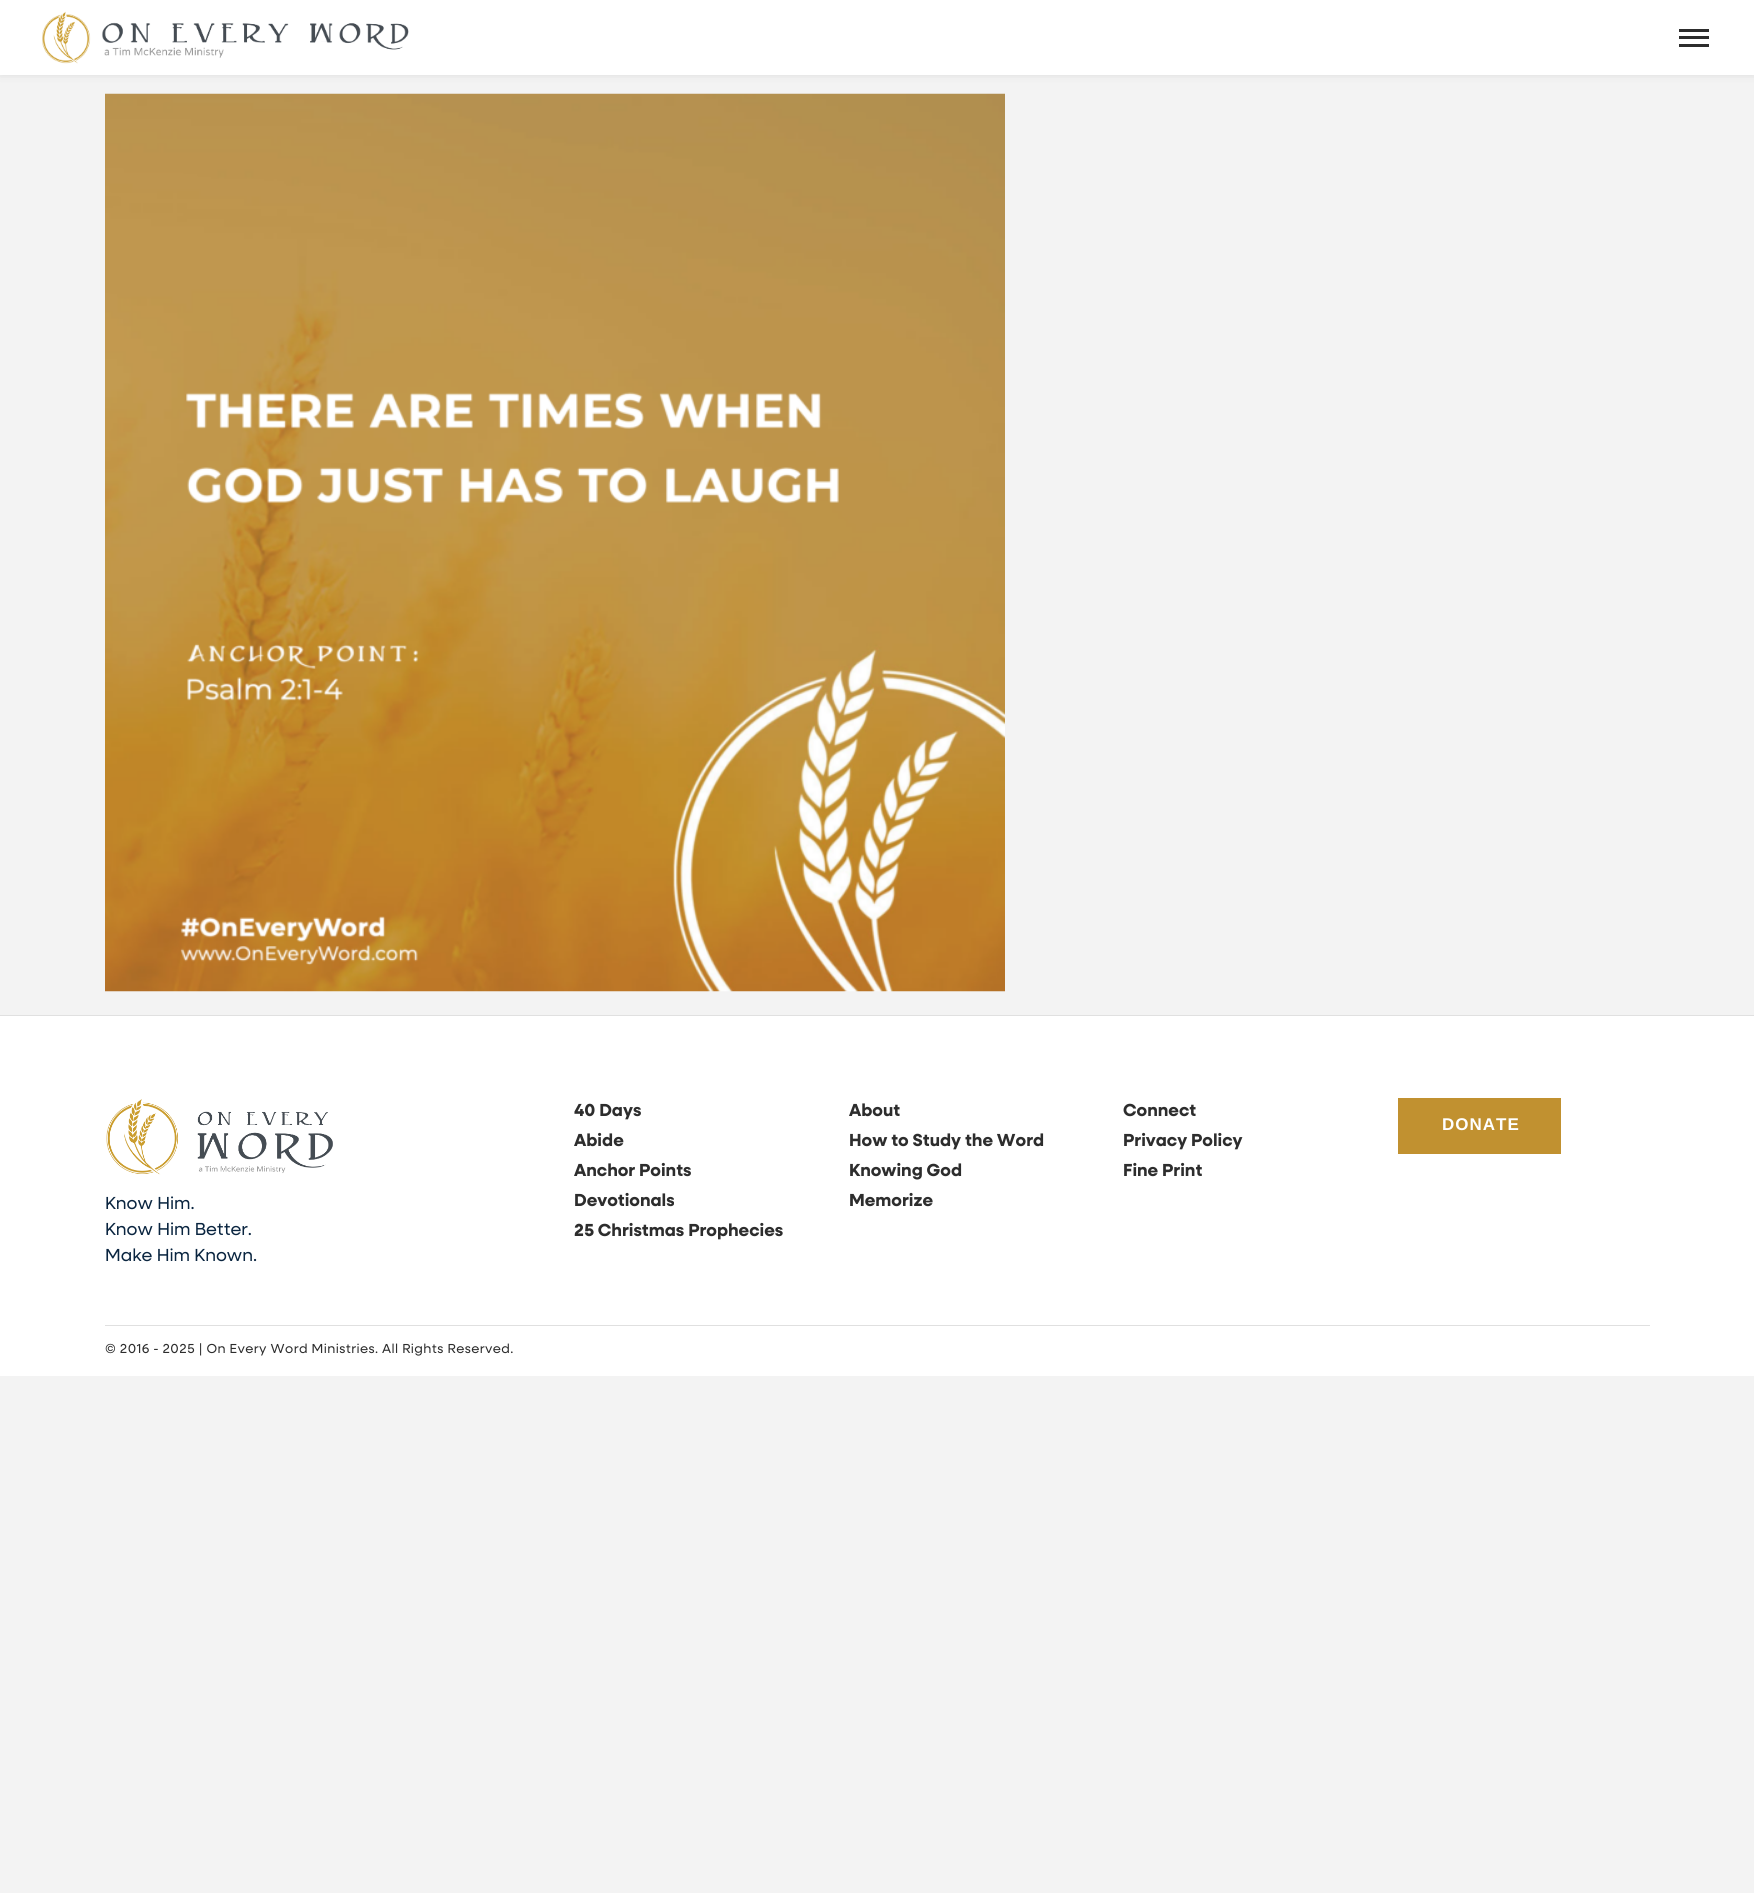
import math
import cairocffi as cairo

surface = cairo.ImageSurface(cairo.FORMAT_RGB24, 1754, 1893)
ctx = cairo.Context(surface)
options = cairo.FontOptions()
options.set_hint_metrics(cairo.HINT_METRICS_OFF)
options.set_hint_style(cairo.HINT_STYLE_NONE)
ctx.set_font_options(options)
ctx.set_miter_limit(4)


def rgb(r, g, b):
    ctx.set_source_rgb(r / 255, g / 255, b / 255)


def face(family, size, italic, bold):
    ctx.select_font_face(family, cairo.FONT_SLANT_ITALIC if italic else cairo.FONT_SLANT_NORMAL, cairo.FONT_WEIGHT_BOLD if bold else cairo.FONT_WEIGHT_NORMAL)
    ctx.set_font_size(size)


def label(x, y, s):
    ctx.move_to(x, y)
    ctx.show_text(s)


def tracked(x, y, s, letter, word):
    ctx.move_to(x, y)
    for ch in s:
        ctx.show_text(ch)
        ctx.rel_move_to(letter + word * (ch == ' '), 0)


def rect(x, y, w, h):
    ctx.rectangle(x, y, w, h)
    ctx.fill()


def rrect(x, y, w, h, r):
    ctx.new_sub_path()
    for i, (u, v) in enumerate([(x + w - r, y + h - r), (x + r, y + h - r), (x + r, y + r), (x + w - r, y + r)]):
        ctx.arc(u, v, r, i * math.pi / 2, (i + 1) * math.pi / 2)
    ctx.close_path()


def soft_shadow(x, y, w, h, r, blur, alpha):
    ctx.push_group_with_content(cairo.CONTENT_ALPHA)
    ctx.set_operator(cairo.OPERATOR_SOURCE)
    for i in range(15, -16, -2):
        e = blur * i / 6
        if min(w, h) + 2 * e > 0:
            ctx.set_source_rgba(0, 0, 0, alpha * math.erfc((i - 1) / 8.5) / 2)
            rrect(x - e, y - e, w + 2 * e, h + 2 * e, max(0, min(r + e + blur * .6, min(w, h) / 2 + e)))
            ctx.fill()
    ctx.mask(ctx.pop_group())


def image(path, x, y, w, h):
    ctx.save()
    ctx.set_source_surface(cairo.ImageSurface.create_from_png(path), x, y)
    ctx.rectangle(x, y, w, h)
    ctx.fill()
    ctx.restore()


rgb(243, 243, 243)
ctx.paint()
rgb(45, 45, 45)
soft_shadow(0, -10, 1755, 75, 0, 7, 0.85)
rgb(255, 255, 255)
rect(0, 0, 1754, 75)
image('image0.png', 42, 11, 367, 53)
rgb(45, 45, 45)
rect(1679, 29, 30, 3)
rect(1679, 36, 30, 3)
rect(1679, 44, 30, 3)
image('image1.png', 105, 93, 900, 899)
rgb(255, 255, 255)
rect(0, 1016, 1754, 360)
rgb(224, 224, 224)
rect(0, 1015, 1754, 1)
image('image2.png', 106, 1099, 227, 76)
face('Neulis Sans', 17.5, 0, 0)
rgb(10, 37, 64)
label(105, 1209, 'Know Him.')
label(105, 1235, 'Know Him Better.')
label(105, 1261, 'Make Him Known.')
face('Neulis Sans', 17.5, 0, 1)
rgb(45, 45, 45)
label(574, 1116, '40 Days')
label(574, 1146, 'Abide')
label(574, 1176, 'Anchor Points')
label(574, 1206, 'Devotionals')
label(574, 1236, '25 Christmas Prophecies')
label(849, 1116, 'About')
label(849, 1146, 'How to Study the Word')
label(849, 1176, 'Knowing God')
label(849, 1206, 'Memorize')
label(1123, 1116, 'Connect')
label(1123, 1146, 'Privacy Policy')
label(1123, 1176, 'Fine Print')
rgb(193, 145, 48)
rect(1398, 1098, 163, 56)
face('Liberation Sans', 17, 0, 1)
rgb(255, 255, 255)
tracked(1442, 1130, 'DONATE', 1, 0)
rgb(224, 224, 224)
rect(105, 1325, 1545, 1)
face('Neulis Sans', 13.1, 0, 0)
rgb(45, 45, 45)
tracked(105, 1353, '© 2016 - 2025 | On Every Word Ministries. All Rights Reserved.', 0.4, 0)
surface.write_to_png('render.png')
